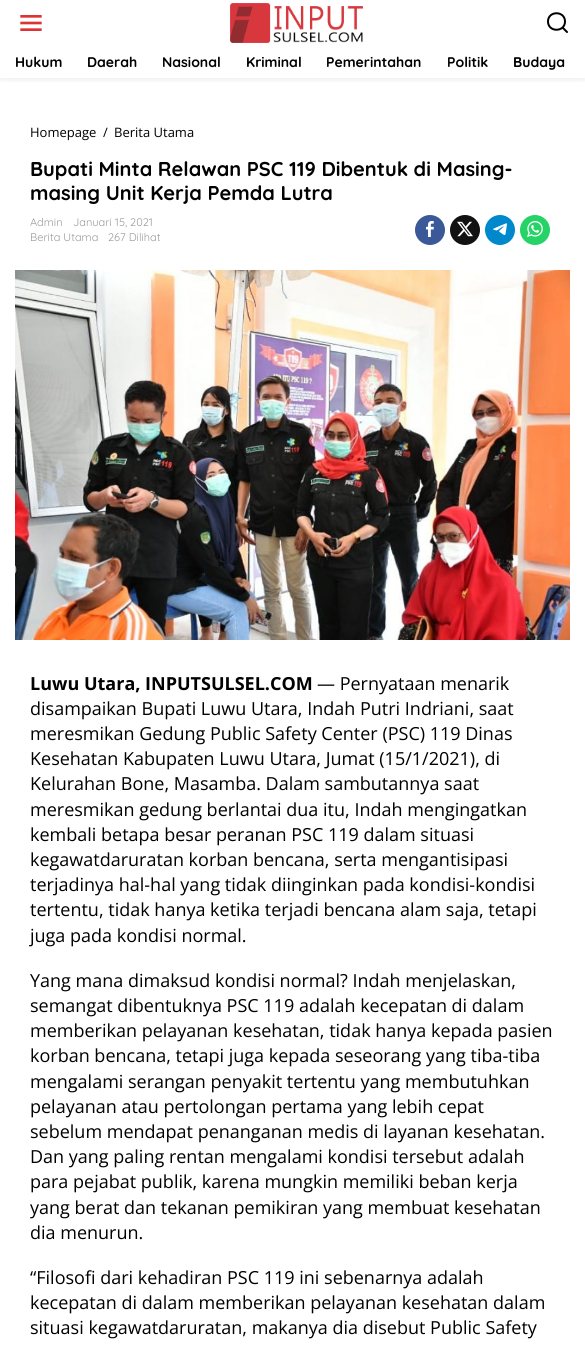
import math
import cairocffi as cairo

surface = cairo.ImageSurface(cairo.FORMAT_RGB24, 585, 1347)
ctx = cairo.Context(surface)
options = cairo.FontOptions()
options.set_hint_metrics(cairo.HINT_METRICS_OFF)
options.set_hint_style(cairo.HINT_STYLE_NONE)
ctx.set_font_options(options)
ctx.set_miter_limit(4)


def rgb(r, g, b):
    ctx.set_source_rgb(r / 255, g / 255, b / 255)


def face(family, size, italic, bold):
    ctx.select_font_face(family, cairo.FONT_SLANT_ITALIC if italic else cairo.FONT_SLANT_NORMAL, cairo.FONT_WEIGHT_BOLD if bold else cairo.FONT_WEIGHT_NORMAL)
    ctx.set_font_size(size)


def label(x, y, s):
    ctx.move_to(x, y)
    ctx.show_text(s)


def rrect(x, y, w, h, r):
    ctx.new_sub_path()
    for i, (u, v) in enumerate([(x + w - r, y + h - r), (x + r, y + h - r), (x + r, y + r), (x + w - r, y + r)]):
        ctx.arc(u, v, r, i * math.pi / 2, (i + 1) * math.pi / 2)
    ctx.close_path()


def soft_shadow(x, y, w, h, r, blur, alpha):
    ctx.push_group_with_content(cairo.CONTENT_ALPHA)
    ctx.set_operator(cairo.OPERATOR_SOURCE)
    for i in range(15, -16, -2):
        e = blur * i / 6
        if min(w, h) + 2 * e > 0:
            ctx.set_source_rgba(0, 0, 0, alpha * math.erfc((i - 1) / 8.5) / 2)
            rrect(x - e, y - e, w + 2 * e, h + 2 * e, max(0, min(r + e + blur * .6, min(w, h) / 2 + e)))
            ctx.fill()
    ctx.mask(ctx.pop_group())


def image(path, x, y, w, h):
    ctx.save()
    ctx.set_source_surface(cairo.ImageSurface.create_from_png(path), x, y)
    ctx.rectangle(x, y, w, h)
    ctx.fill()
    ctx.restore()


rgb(255, 255, 255)
ctx.paint()
ctx.save()
ctx.rectangle(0, 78, 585, 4)
ctx.clip()
rgb(0, 0, 0)
soft_shadow(0, 0, 585, 78, 0, 5, 0.1)
ctx.restore()
image('image0.png', 20, 15, 22, 16)
image('image1.png', 230, 3, 133, 40)
ctx.new_path()
ctx.move_to(567, 32)
ctx.line_to(562.5, 27.5)
ctx.move_to(565, 21.5)
ctx.curve_to(565, 32.5, 548, 32.5, 548, 21.5)
ctx.curve_to(548, 10.5, 565, 10.5, 565, 21.5)
ctx.close_path()
rgb(0, 0, 0)
ctx.set_line_cap(cairo.LINE_CAP_ROUND)
ctx.stroke()
face('Quicksand', 14, 0, 1)
label(15, 67, 'Hukum')
label(87, 67, 'Daerah')
label(162, 67, 'Nasional')
label(246, 67, 'Kriminal')
label(326, 67, 'Pemerintahan')
label(447, 67, 'Politik')
label(513, 67, 'Budaya')
face('Open Sans', 13, 0, 0)
label(30, 137, 'Homepage')
label(103, 137, '/')
label(114, 137, 'Berita Utama')
face('Quicksand', 20, 0, 1)
label(30, 176, 'Bupati Minta Relawan PSC 119 Dibentuk di Masing-')
label(30, 200, 'masing Unit Kerja Pemda Lutra')
face('Quicksand', 11, 0, 0)
rgb(153, 153, 153)
label(30, 226, 'Admin')
label(73, 226, 'Januari 15, 2021')
label(30, 241, 'Berita Utama')
label(108, 241, '267 Dilihat')
rgb(59, 89, 152)
ctx.new_path()
ctx.arc(430, 230, 15, 0, 2 * math.pi)
ctx.fill()
image('image2.png', 426, 221, 8, 16)
rgb(18, 18, 18)
ctx.arc(465, 230, 15, 0, 2 * math.pi)
ctx.fill()
image('image3.png', 457, 221, 16, 16)
rgb(0, 136, 204)
ctx.arc(500, 230, 15, 0, 2 * math.pi)
ctx.fill()
image('image4.png', 493, 223, 14, 12)
rgb(37, 211, 102)
ctx.arc(535, 230, 15, 0, 2 * math.pi)
ctx.fill()
image('image5.png', 527, 221, 16, 16)
image('image6.png', 15, 270, 555, 370)
face('Open Sans', 18, 0, 1)
rgb(0, 0, 0)
label(30, 690, 'Luwu Utara, INPUTSULSEL.COM')
face('Open Sans', 18, 0, 0)
label(317, 690, '— Pernyataan menarik')
label(30, 715, 'disampaikan Bupati Luwu Utara, Indah Putri Indriani, saat')
label(30, 740, 'meresmikan Gedung Public Safety Center (PSC) 119 Dinas')
label(30, 765, 'Kesehatan Kabupaten Luwu Utara, Jumat (15/1/2021), di')
label(30, 790, 'Kelurahan Bone, Masamba. Dalam sambutannya saat')
label(30, 816, 'meresmikan gedung berlantai dua itu, Indah mengingatkan')
label(30, 841, 'kembali betapa besar peranan PSC 119 dalam situasi')
label(30, 866, 'kegawatdaruratan korban bencana, serta mengantisipasi')
label(30, 891, 'terjadinya hal-hal yang tidak diinginkan pada kondisi-kondisi')
label(30, 916, 'tertentu, tidak hanya ketika terjadi bencana alam saja, tetapi')
label(30, 942, 'juga pada kondisi normal.')
label(30, 987, 'Yang mana dimaksud kondisi normal? Indah menjelaskan,')
label(30, 1012, 'semangat dibentuknya PSC 119 adalah kecepatan di dalam')
label(30, 1037, 'memberikan pelayanan kesehatan, tidak hanya kepada pasien')
label(30, 1062, 'korban bencana, tetapi juga kepada seseorang yang tiba-tiba')
label(30, 1088, 'mengalami serangan penyakit tertentu yang membutuhkan')
label(30, 1113, 'pelayanan atau pertolongan pertama yang lebih cepat')
label(30, 1138, 'sebelum mendapat penanganan medis di layanan kesehatan.')
label(30, 1163, 'Dan yang paling rentan mengalami kondisi tersebut adalah')
label(30, 1188, 'para pejabat publik, karena mungkin memiliki beban kerja')
label(30, 1214, 'yang berat dan tekanan pemikiran yang membuat kesehatan')
label(30, 1239, 'dia menurun.')
label(30, 1284, '“Filosofi dari kehadiran PSC 119 ini sebenarnya adalah')
label(30, 1309, 'kecepatan di dalam memberikan pelayanan kesehatan dalam')
label(30, 1334, 'situasi kegawatdaruratan, makanya dia disebut Public Safety')
surface.write_to_png('render.png')
